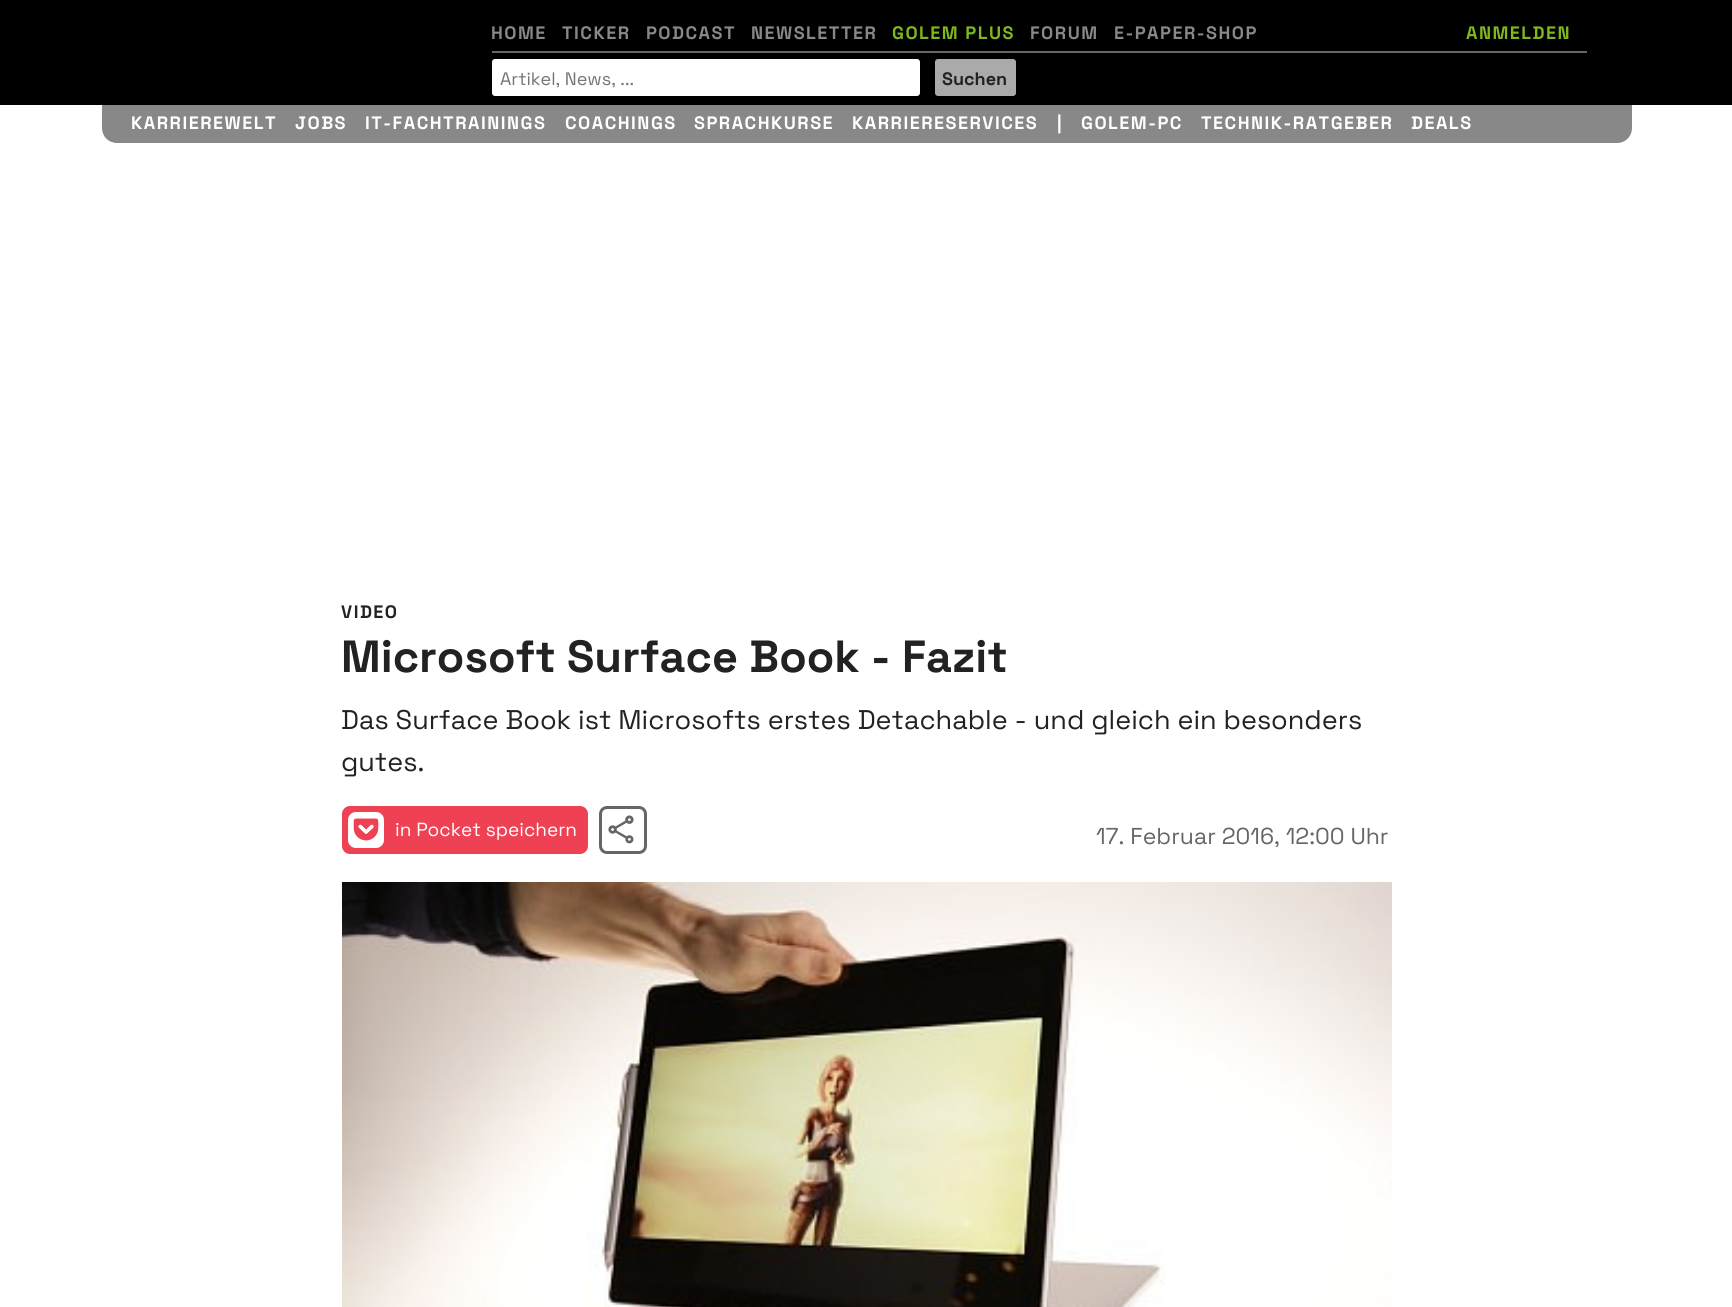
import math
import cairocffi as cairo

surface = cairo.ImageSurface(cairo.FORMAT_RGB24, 1732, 1307)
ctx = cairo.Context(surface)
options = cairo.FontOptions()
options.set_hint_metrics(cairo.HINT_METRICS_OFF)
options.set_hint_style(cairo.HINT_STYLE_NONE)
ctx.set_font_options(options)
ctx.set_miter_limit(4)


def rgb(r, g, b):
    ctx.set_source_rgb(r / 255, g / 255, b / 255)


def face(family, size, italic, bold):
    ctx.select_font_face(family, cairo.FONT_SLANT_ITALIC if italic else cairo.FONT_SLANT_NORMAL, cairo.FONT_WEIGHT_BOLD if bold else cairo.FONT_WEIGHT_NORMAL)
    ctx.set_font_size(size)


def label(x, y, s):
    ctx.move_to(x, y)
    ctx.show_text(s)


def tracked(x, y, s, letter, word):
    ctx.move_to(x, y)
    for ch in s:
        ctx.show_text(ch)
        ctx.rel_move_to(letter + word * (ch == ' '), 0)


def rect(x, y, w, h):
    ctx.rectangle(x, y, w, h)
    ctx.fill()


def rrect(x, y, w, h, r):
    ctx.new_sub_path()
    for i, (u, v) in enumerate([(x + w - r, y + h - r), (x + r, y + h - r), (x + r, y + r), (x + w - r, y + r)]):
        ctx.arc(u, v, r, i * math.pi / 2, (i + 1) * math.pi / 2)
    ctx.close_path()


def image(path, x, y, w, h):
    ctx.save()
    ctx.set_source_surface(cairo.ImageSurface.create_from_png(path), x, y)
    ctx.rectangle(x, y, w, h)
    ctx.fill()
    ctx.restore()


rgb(255, 255, 255)
ctx.paint()
rgb(0, 0, 0)
rect(0, 0, 1732, 105)
face('Space Grotesk', 18, 0, 1)
rgb(136, 136, 136)
tracked(491, 39, 'HOME', 1.5, 0)
tracked(562, 39, 'TICKER', 1.5, 0)
tracked(646, 39, 'PODCAST', 1.5, 0)
tracked(751, 39, 'NEWSLETTER', 1.5, 0)
rgb(127, 183, 30)
tracked(892, 39, 'GOLEM PLUS', 1.5, 0)
rgb(136, 136, 136)
tracked(1030, 39, 'FORUM', 1.5, 0)
tracked(1114, 39, 'E-PAPER-SHOP', 1.5, 0)
rgb(127, 183, 30)
tracked(1466, 39, 'ANMELDEN', 1.5, 0)
rgb(102, 102, 102)
rect(492, 51, 1095, 2)
rgb(255, 255, 255)
rrect(493, 60, 426, 35, 2)
ctx.fill_preserve()
ctx.stroke()
face('Space Grotesk', 18, 0, 0)
rgb(117, 117, 117)
label(500, 85, 'Artikel, News, ...')
rgb(170, 170, 170)
rrect(935, 59, 81, 37, 3)
ctx.fill()
face('Space Grotesk', 18, 0, 1)
rgb(34, 34, 34)
label(942, 85, 'Suchen')
rgb(136, 136, 136)
ctx.new_path()
ctx.move_to(102, 105)
ctx.line_to(1632, 105)
ctx.line_to(1632, 128)
ctx.curve_to(1632, 136.5, 1625.5, 143, 1617, 143)
ctx.line_to(117, 143)
ctx.curve_to(108.5, 143, 102, 136.5, 102, 128)
ctx.close_path()
ctx.fill()
rgb(255, 255, 255)
tracked(131, 129, 'KARRIEREWELT', 1.5, 0)
tracked(295, 129, 'JOBS', 1.5, 0)
tracked(365, 129, 'IT-FACHTRAININGS', 1.5, 0)
tracked(565, 129, 'COACHINGS', 1.5, 0)
tracked(694, 129, 'SPRACHKURSE', 1.5, 0)
tracked(852, 129, 'KARRIERESERVICES', 1.5, 0)
tracked(1057, 129, '|', 1.5, 0)
tracked(1081, 129, 'GOLEM-PC', 1.5, 0)
tracked(1201, 129, 'TECHNIK-RATGEBER', 1.5, 0)
tracked(1411, 129, 'DEALS', 1.5, 0)
rgb(34, 34, 34)
tracked(341, 618, 'VIDEO', 1.5, 0)
face('Space Grotesk', 45, 0, 1)
label(341, 672, 'Microsoft Surface Book - Fazit')
face('Space Grotesk', 27, 0, 0)
label(341, 729, 'Das Surface Book ist Microsofts erstes Detachable - und gleich ein besonders')
label(341, 771, 'gutes.')
rgb(239, 65, 84)
rrect(342, 806, 246, 48, 8)
ctx.fill()
rgb(255, 255, 255)
rrect(348, 812, 36, 36, 8)
ctx.fill()
image('image0.png', 353, 818, 26, 23)
face('Space Grotesk', 19, 0, 0)
label(395, 836, 'in Pocket speichern')
rrect(600.5, 807.5, 45, 45, 6.5)
rgb(102, 102, 102)
ctx.set_line_width(3)
ctx.stroke()
image('image1.png', 608, 815, 26, 29)
face('Space Grotesk', 23, 0, 0)
label(1096, 844, '17. Februar 2016, 12:00 Uhr')
image('image2.png', 342, 882, 1050, 425)
surface.write_to_png('render.png')
